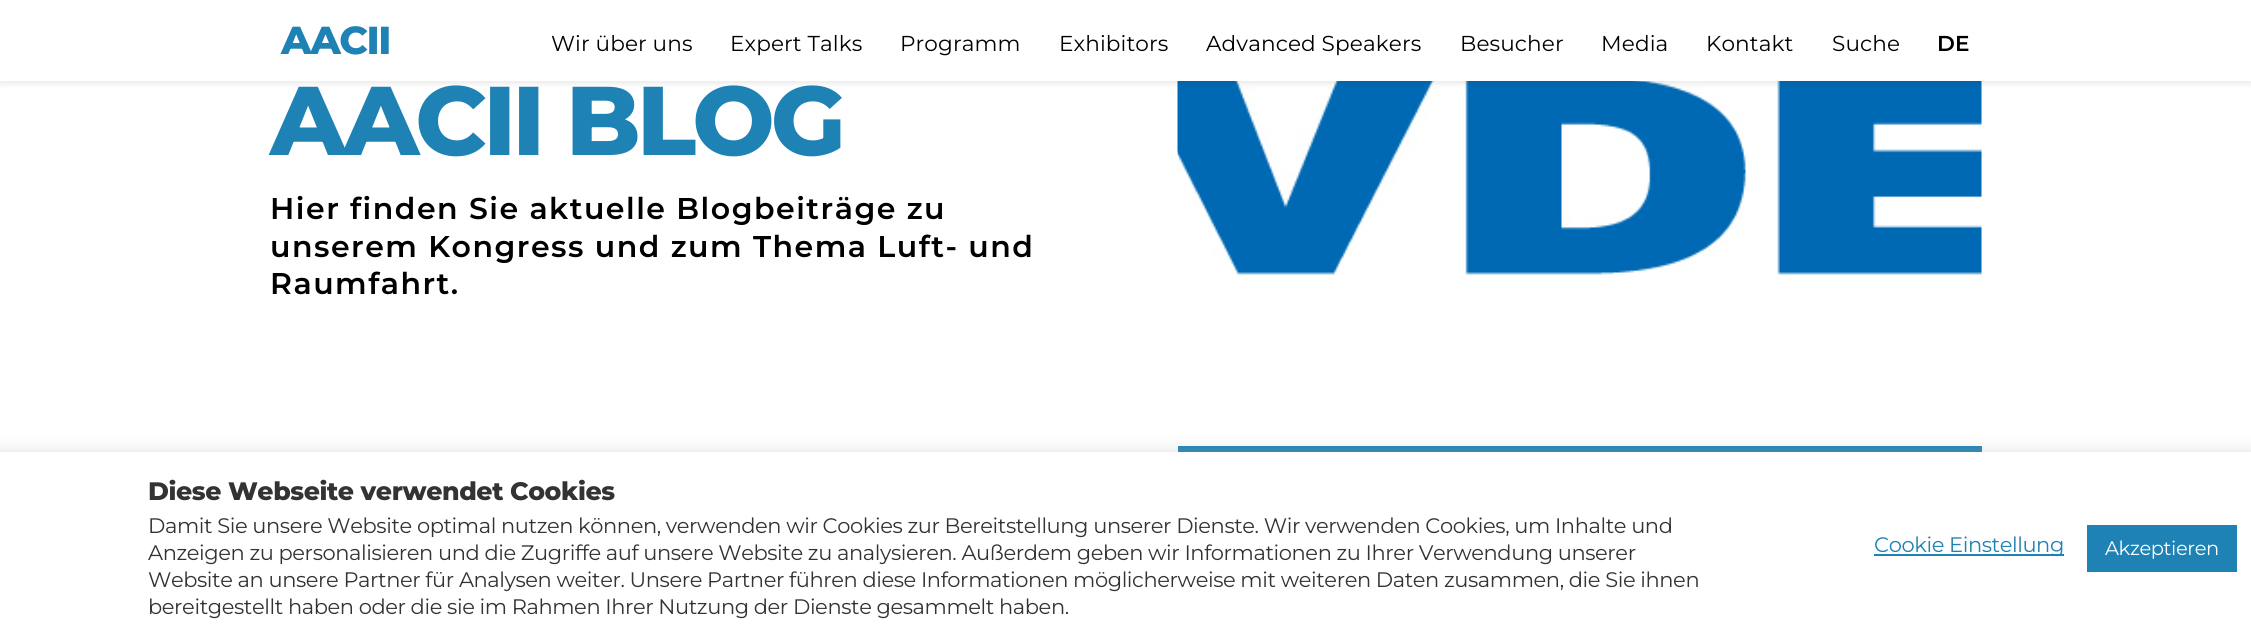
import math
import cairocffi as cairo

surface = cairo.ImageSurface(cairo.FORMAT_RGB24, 2251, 637)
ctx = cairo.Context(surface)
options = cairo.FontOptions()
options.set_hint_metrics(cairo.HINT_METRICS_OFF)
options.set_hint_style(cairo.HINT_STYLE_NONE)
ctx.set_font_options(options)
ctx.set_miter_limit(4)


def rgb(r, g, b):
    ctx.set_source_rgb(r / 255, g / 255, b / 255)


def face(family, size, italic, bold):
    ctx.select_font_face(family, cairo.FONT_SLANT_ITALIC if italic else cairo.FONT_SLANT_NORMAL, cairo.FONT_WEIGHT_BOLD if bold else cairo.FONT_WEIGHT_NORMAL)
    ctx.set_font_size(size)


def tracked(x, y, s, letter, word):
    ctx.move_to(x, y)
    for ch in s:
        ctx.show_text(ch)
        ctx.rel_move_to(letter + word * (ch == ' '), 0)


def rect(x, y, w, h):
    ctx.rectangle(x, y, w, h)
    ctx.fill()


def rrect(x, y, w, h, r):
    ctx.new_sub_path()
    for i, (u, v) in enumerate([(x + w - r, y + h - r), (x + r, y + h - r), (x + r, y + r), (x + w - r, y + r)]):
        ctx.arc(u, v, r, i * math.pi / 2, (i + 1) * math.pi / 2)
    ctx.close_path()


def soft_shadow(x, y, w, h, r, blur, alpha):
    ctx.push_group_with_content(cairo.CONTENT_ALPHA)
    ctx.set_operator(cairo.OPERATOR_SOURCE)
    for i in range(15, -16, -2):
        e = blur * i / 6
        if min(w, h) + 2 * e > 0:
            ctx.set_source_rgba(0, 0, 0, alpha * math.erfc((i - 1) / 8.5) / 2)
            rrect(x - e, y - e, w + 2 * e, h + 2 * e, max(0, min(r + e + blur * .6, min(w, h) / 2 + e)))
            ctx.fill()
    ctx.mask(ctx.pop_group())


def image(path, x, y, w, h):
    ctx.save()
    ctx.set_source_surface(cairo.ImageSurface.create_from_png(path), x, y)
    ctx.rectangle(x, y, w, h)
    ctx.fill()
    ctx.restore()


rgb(255, 255, 255)
ctx.paint()
image('image0.png', 1177, 81, 805, 194)
rgb(52, 52, 52)
soft_shadow(0, 3, 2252, 81, 0, 3, 0.1)
rgb(255, 255, 255)
rect(0, 0, 2251, 81)
face('Montserrat Thin', 39, 0, 0)
rgb(30, 130, 180)
tracked(281, 54, 'AACII', -1.5, 0)
face('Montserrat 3 Thin', 21.6, 0, 0)
rgb(0, 0, 0)
tracked(551, 51, 'Wir über uns', 0.1, 0)
tracked(730, 51, 'Expert Talks', 0.1, 0)
tracked(900, 51, 'Programm', 0.1, 0)
tracked(1059, 51, 'Exhibitors', 0.1, 0)
tracked(1206, 51, 'Advanced Speakers', 0.1, 0)
tracked(1460, 51, 'Besucher', 0.1, 0)
tracked(1601, 51, 'Media', 0.1, 0)
tracked(1706, 51, 'Kontakt', 0.1, 0)
tracked(1832, 51, 'Suche', 0.1, 0)
face('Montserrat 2 Thin', 21.6, 0, 0)
tracked(1937, 51, 'DE', 0.1, 0)
face('Montserrat Thin', 97.5, 0, 0)
rgb(30, 130, 180)
tracked(270, 155, 'AACII BLOG', -4, 0)
face('Montserrat 2 Thin', 30, 0, 0)
rgb(0, 0, 0)
tracked(270, 219, 'Hier finden Sie aktuelle Blogbeiträge zu', 1.5, 0)
tracked(270, 257, 'unserem Kongress und zum Thema Luft- und', 1.5, 0)
tracked(270, 294, 'Raumfahrt.', 1.5, 0)
rgb(30, 130, 180)
rect(1178, 446, 804, 6)
rgb(172, 171, 171)
soft_shadow(0, 450, 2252, 186, 0, 7.5, 0.3)
rgb(255, 255, 255)
rect(0, 452, 2251, 185)
face('Montserrat Thin', 25.25, 0, 0)
rgb(51, 51, 51)
tracked(148, 500, 'Diese Webseite verwendet Cookies', -0.41, 0)
face('Montserrat 3 Thin', 21, 0, 0)
tracked(148, 533, 'Damit Sie unsere Website optimal nutzen können, verwenden wir Cookies zur Bereitstellung unserer Dienste. Wir verwenden Cookies, um Inhalte und', -0.41, 0)
tracked(148, 560, 'Anzeigen zu personalisieren und die Zugriffe auf unsere Website zu analysieren. Außerdem geben wir Informationen zu Ihrer Verwendung unserer', -0.41, 0)
tracked(148, 587, 'Website an unsere Partner für Analysen weiter. Unsere Partner führen diese Informationen möglicherweise mit weiteren Daten zusammen, die Sie ihnen', -0.41, 0)
tracked(148, 614, 'bereitgestellt haben oder die sie im Rahmen Ihrer Nutzung der Dienste gesammelt haben.', -0.41, 0)
rgb(30, 130, 180)
rect(1874, 554, 190, 2)
tracked(1874, 552, 'Cookie Einstellung', -0.41, 0)
rect(2087, 525, 150, 47)
face('Montserrat 3 Thin', 19.5, 0, 0)
rgb(255, 255, 255)
tracked(2105, 555, 'Akzeptieren', -0.41, 0)
surface.write_to_png('render.png')
